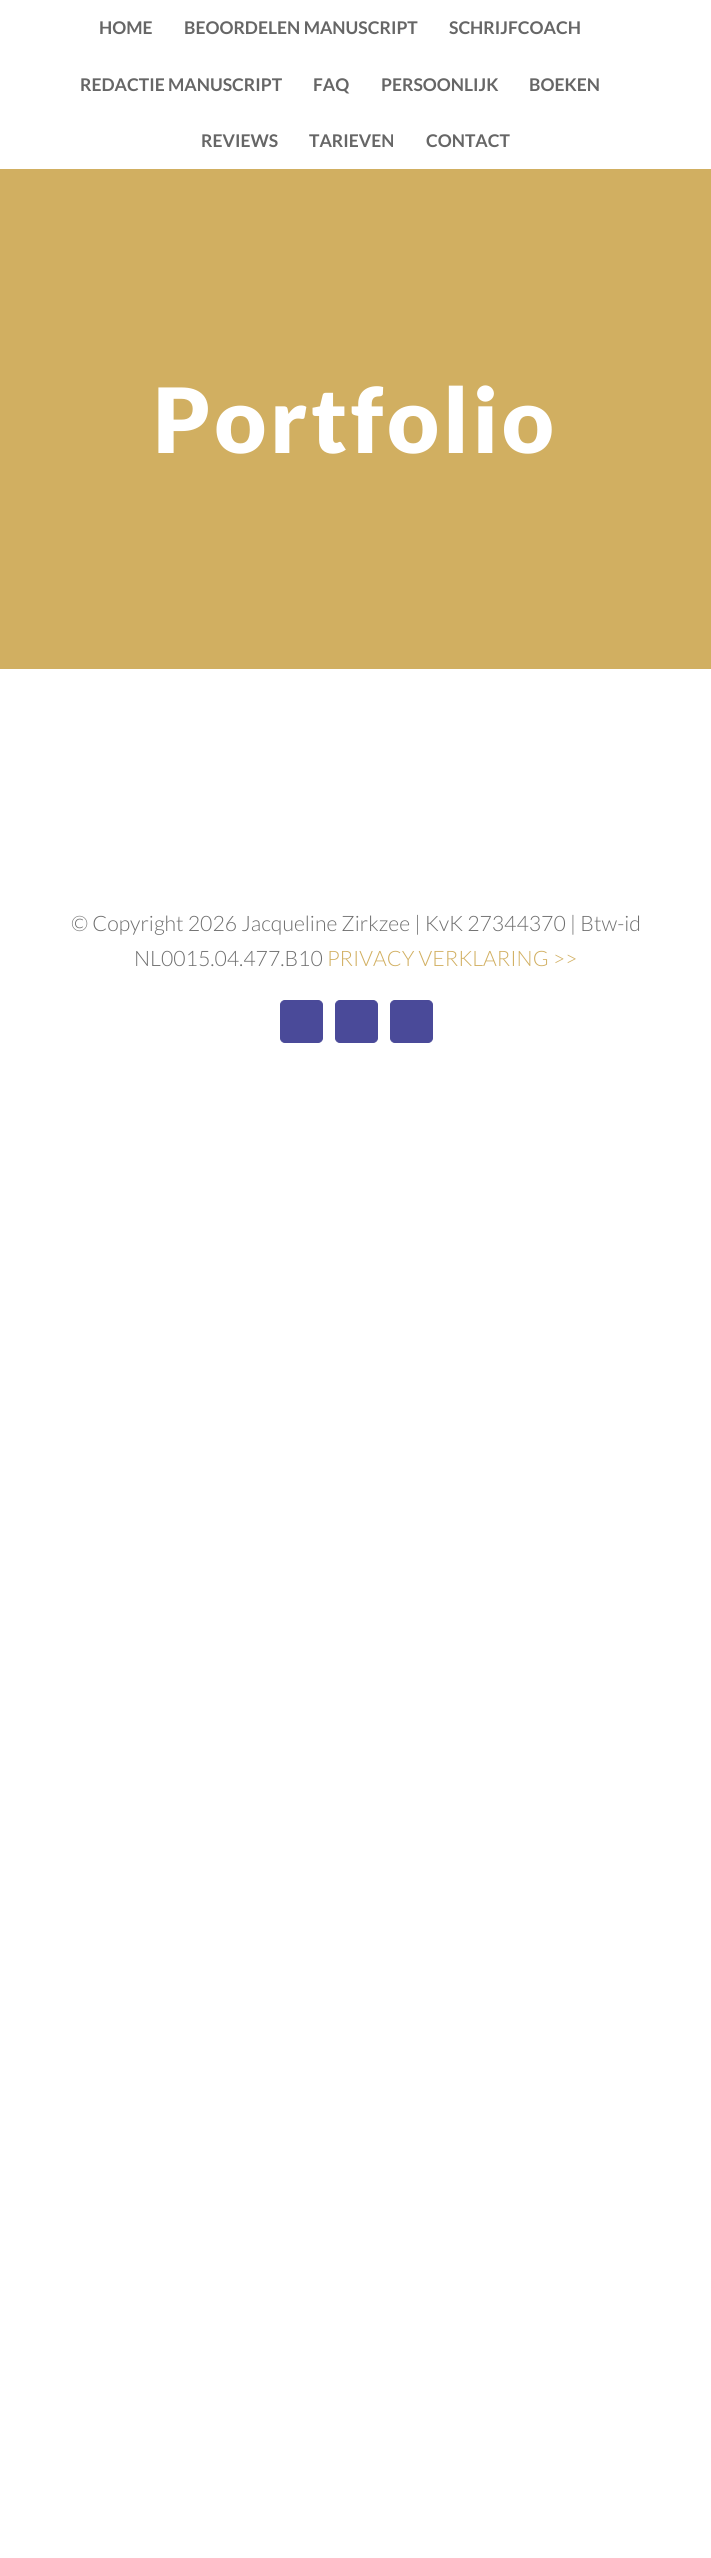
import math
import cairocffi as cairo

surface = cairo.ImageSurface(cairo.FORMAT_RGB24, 711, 2558)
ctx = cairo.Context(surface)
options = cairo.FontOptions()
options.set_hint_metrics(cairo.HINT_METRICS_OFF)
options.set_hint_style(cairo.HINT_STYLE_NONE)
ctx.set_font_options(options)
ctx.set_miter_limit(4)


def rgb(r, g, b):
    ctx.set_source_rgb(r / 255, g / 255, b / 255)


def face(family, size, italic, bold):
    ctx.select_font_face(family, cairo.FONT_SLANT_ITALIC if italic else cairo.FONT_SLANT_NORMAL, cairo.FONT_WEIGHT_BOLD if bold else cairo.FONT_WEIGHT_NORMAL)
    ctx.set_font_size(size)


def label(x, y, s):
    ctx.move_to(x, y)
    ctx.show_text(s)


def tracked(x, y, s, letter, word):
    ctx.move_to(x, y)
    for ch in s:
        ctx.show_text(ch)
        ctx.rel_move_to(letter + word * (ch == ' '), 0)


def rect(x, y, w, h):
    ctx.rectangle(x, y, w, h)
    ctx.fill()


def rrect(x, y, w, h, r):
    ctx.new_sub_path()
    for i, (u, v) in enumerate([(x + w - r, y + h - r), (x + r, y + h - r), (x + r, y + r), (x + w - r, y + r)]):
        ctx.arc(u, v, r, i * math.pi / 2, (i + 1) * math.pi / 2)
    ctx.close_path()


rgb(255, 255, 255)
ctx.paint()
face('Lato', 17.5, 0, 1)
rgb(102, 102, 102)
label(99, 34, 'HOME')
label(184, 34, 'BEOORDELEN MANUSCRIPT')
label(449, 34, 'SCHRIJFCOACH')
label(80, 91, 'REDACTIE MANUSCRIPT')
label(313, 91, 'FAQ')
label(381, 91, 'PERSOONLIJK')
label(529, 91, 'BOEKEN')
label(201, 147, 'REVIEWS')
label(309, 147, 'TARIEVEN')
label(426, 147, 'CONTACT')
rgb(209, 175, 97)
rect(0, 169, 711, 500)
face('Lato Black', 90, 0, 0)
rgb(255, 255, 255)
tracked(153, 453, 'Portfolio', 3.75, 0)
face('Lato Light', 21.25, 0, 0)
rgb(110, 110, 110)
label(71, 931, '© Copyright 2026 Jacqueline Zirkzee | KvK 27344370 | Btw-id')
label(134, 966, 'NL0015.04.477.B10')
rgb(209, 175, 97)
label(327, 966, 'PRIVACY VERKLARING >>')
rgb(74, 74, 153)
rrect(280.5, 1000.5, 42, 42, 4.5)
ctx.fill_preserve()
ctx.set_line_width(1)
ctx.stroke()
rrect(335.5, 1000.5, 42, 42, 4.5)
ctx.fill_preserve()
ctx.stroke()
rrect(390.5, 1000.5, 42, 42, 4.5)
ctx.fill_preserve()
ctx.stroke()
surface.write_to_png('render.png')
